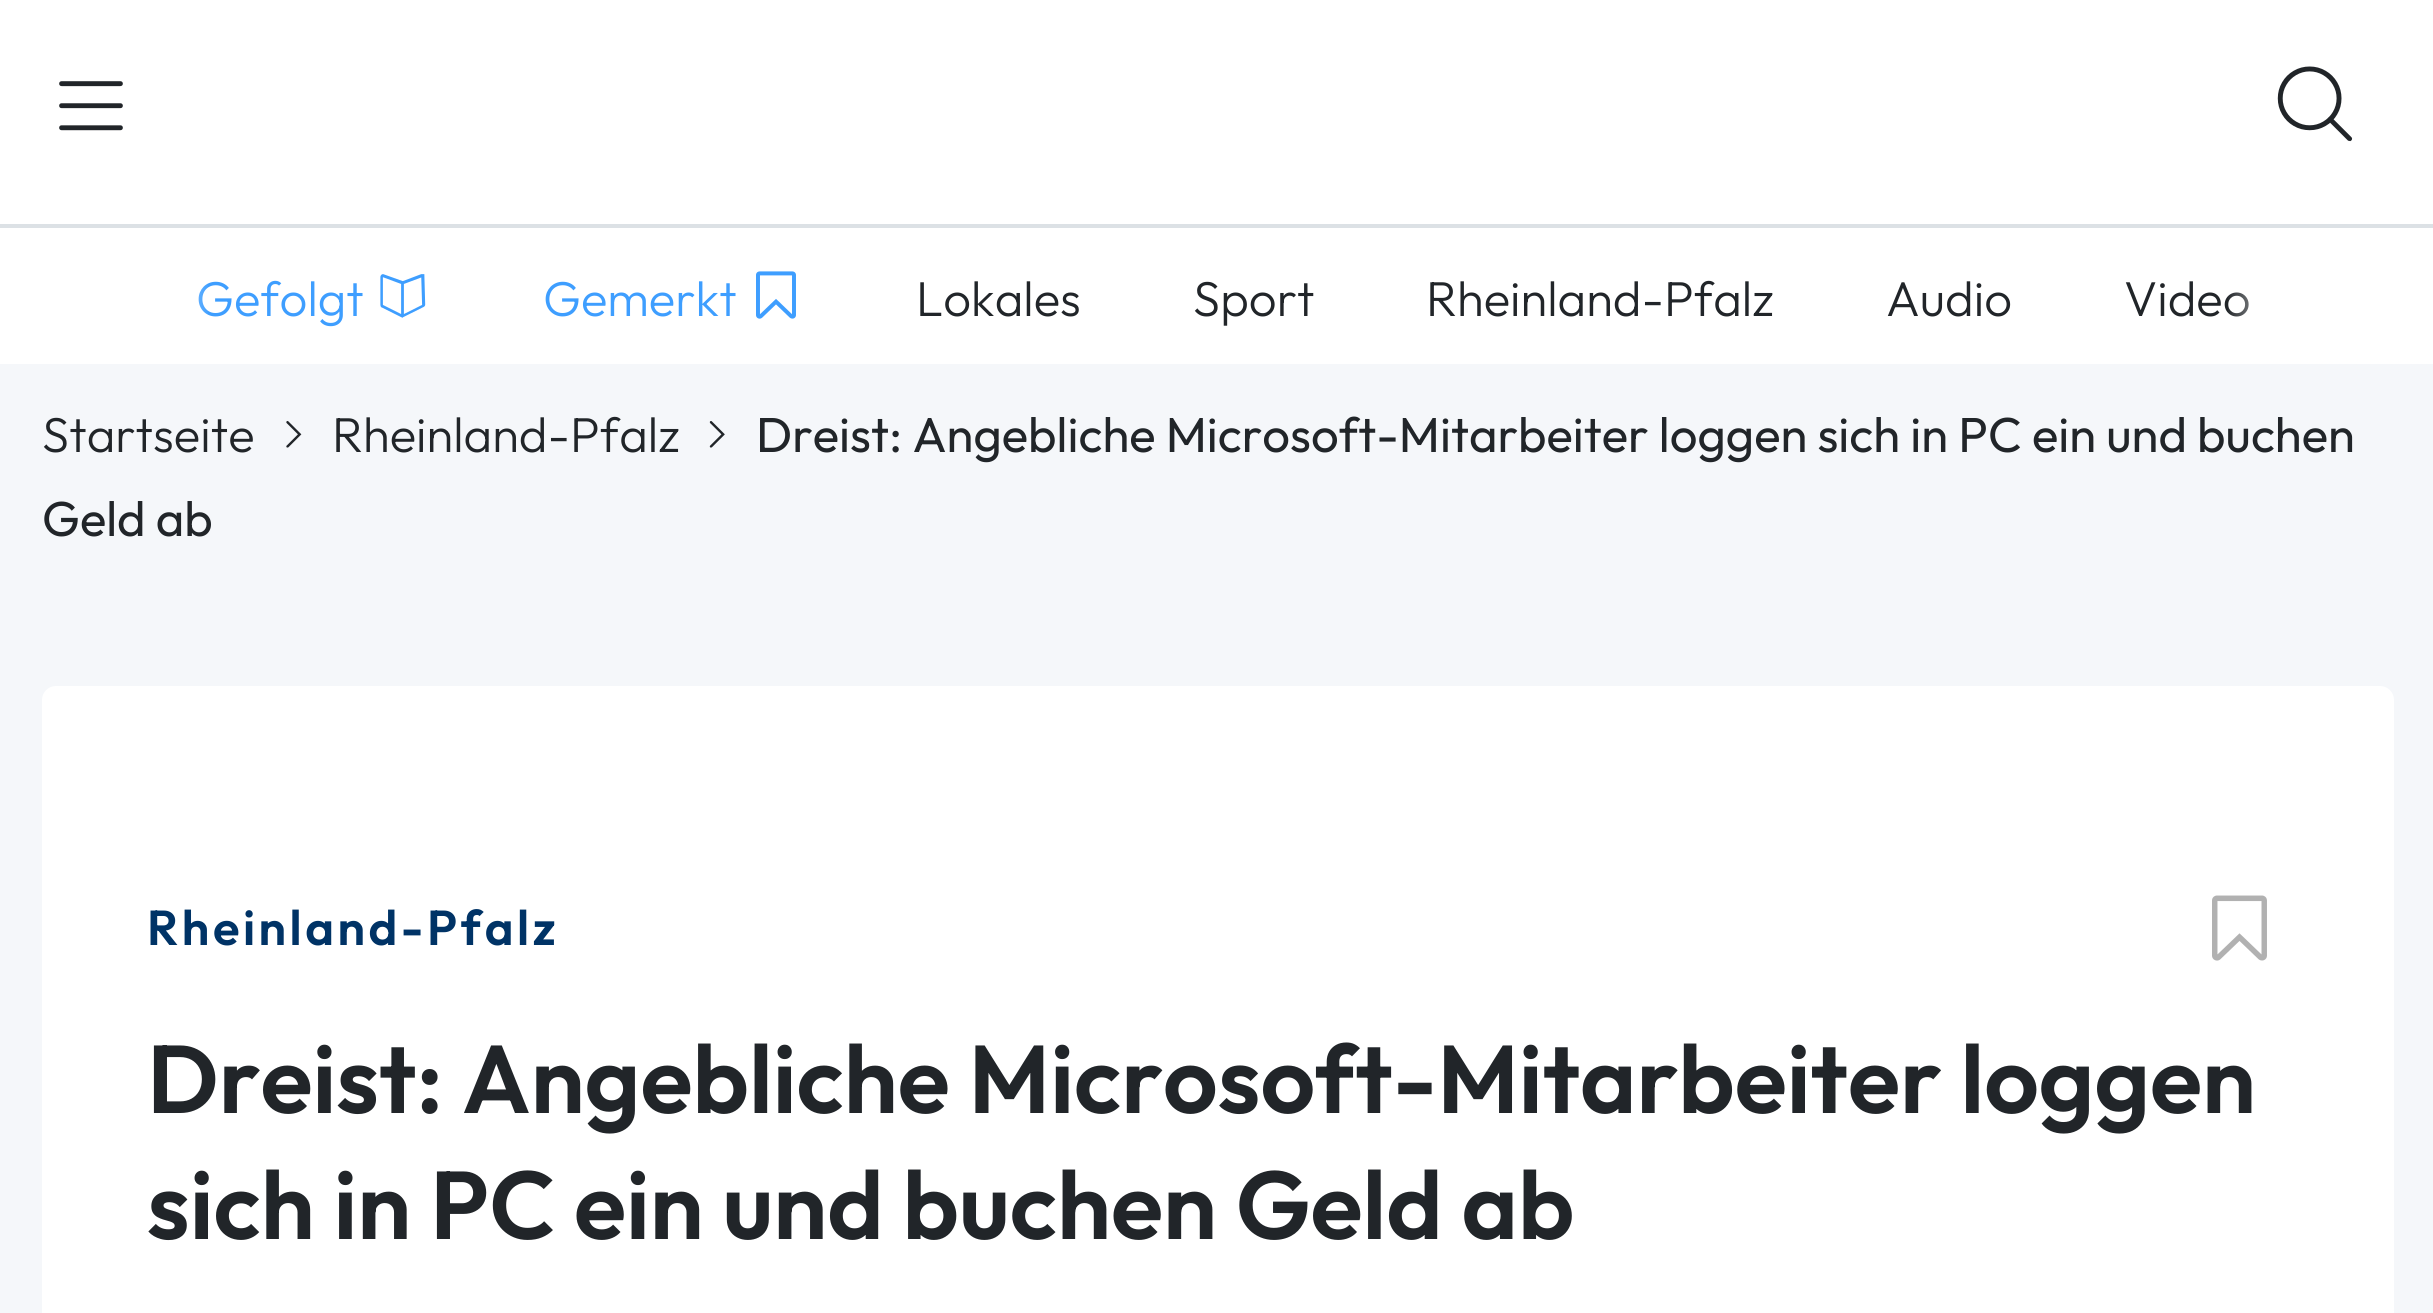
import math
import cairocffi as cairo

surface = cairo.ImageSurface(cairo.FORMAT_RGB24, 2433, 1313)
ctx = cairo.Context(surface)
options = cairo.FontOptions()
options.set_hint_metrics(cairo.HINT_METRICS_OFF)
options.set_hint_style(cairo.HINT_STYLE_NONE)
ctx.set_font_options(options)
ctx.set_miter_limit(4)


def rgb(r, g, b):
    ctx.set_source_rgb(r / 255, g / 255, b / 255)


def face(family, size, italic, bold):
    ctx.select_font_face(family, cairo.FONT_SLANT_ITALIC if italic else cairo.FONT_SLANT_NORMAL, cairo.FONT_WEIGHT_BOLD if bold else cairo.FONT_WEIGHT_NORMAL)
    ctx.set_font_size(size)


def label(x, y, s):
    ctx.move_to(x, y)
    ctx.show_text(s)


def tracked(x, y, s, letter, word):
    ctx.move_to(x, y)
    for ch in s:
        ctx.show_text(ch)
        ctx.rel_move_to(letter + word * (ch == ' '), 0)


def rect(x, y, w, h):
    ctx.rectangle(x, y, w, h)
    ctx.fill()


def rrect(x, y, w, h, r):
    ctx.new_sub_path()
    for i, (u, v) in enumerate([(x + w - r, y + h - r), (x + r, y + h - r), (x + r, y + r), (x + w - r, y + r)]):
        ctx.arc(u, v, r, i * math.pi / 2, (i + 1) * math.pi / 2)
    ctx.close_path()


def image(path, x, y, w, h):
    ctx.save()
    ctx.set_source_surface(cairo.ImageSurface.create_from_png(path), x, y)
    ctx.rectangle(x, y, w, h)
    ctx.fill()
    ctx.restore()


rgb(245, 247, 250)
ctx.paint()
rgb(255, 255, 255)
rect(0, 0, 2433, 364)
image('image0.png', 59, 81, 64, 50)
image('image1.png', 2277, 66, 76, 76)
rgb(220, 225, 229)
rect(0, 224, 2433, 4)
face('Outfit Light', 49, 0, 0)
rgb(62, 158, 255)
label(196, 316, 'Gefolgt')
image('image2.png', 380, 274, 46, 44)
label(543, 316, 'Gemerkt')
image('image3.png', 756, 271, 40, 48)
rgb(33, 37, 41)
label(916, 316, 'Lokales')
label(1193, 316, 'Sport')
label(1426, 316, 'Rheinland-Pfalz')
label(1886, 316, 'Audio')
label(2124, 316, 'Video')
gradient = cairo.LinearGradient(140, 294, 210, 294)
gradient.add_color_stop_rgba(0, 1, 1, 1, 1)
gradient.add_color_stop_rgba(1, 1, 1, 1, 0)
ctx.set_source(gradient)
rect(198, 284, 10, 31)
gradient = cairo.LinearGradient(2226, 294, 2296, 294)
gradient.add_color_stop_rgba(0, 1, 1, 1, 0)
gradient.add_color_stop_rgba(1, 1, 1, 1, 1)
ctx.set_source(gradient)
rect(2228, 292, 21, 25)
rgb(33, 37, 41)
label(42, 452, 'Startseite')
image('image4.png', 286, 421, 16, 27)
label(332, 452, 'Rheinland-Pfalz')
image('image5.png', 709, 421, 16, 27)
face('Outfit', 49, 0, 0)
label(756, 452, 'Dreist: Angebliche Microsoft-Mitarbeiter loggen sich in PC ein und buchen')
label(42, 536, 'Geld ab')
rgb(255, 255, 255)
rrect(42, 686, 2352, 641, 14)
ctx.fill()
face('Outfit SemiBold', 49, 0, 0)
rgb(0, 51, 102)
tracked(147, 945, 'Rheinland-Pfalz', 3.5, 0)
image('image6.png', 2212, 895, 55, 66)
face('Outfit SemiBold', 96.1, 0, 0)
rgb(33, 37, 41)
label(147, 1113, 'Dreist: Angebliche Microsoft-Mitarbeiter loggen')
label(147, 1239, 'sich in PC ein und buchen Geld ab')
surface.write_to_png('render.png')
